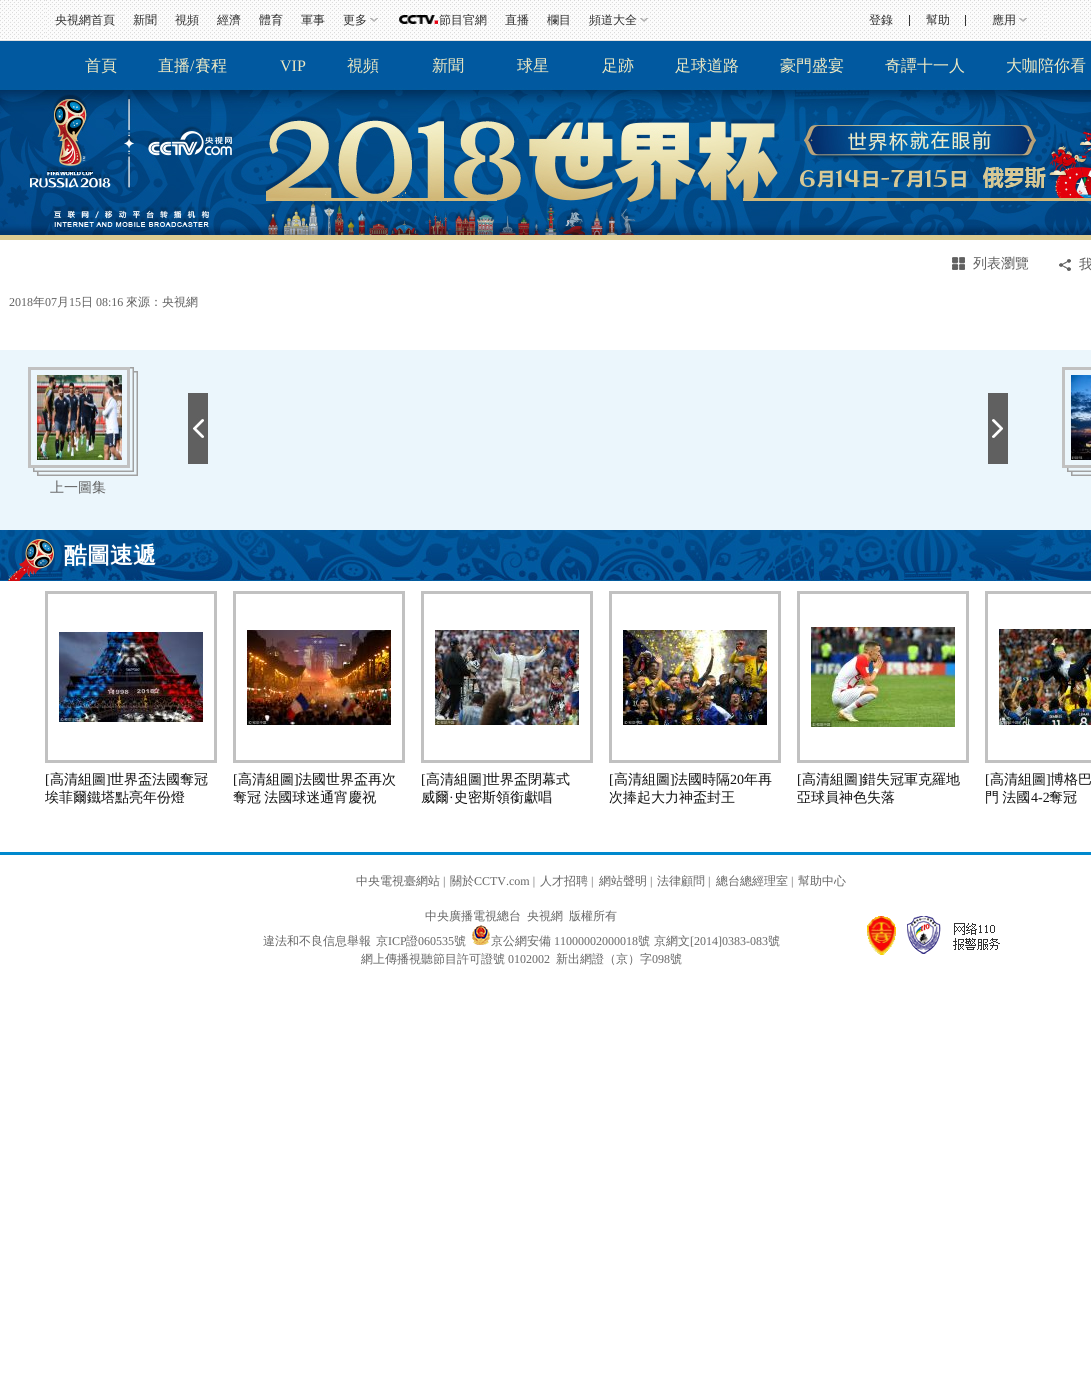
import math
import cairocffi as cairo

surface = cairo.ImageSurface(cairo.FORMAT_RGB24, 1091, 1392)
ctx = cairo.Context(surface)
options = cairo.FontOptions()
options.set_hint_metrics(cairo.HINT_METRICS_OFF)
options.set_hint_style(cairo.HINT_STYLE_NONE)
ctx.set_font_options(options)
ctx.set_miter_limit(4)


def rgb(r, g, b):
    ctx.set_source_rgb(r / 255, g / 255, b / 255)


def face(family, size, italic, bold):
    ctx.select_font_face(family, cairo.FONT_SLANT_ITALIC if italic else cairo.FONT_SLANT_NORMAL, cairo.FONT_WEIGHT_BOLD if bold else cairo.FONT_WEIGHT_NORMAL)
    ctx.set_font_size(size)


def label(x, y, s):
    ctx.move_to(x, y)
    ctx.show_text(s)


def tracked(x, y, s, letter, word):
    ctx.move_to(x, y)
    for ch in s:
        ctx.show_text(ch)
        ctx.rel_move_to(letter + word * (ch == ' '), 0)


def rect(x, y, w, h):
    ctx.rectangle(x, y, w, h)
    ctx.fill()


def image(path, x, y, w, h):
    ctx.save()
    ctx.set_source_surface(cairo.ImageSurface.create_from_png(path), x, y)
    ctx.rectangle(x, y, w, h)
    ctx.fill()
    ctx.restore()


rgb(255, 255, 255)
ctx.paint()
image('image0.png', 0, 0, 1091, 39)
rgb(225, 225, 225)
rect(0, 40, 1091, 1)
image('image1.png', 46, 0, 999, 39)
face('WenQuanYi Zen Hei Medium', 12, 0, 0)
rgb(48, 48, 48)
label(55, 24, '央視網首頁')
label(133, 24, '新聞')
label(175, 24, '視頻')
label(217, 24, '經濟')
label(259, 24, '體育')
label(301, 24, '軍事')
label(343, 24, '更多')
image('image2.png', 370, 18, 8, 4)
image('image3.png', 399, 15, 39, 9)
label(439, 24, '節目官網')
label(505, 24, '直播')
label(547, 24, '欄目')
label(589, 24, '頻道大全')
image('image4.png', 640, 18, 8, 4)
label(869, 24, '登錄')
rgb(51, 51, 51)
rect(909, 15, 1, 11)
rgb(48, 48, 48)
label(926, 24, '幫助')
rgb(51, 51, 51)
rect(965, 15, 1, 11)
rgb(48, 48, 48)
label(992, 24, '應用')
image('image5.png', 1019, 18, 8, 4)
image('image6.png', 0, 41, 1091, 199)
face('WenQuanYi Zen Hei Medium', 16, 0, 0)
rgb(237, 233, 195)
label(85, 71, '首頁')
label(158, 71, '直播')
face('Liberation Serif', 16, 0, 0)
label(190, 71, '/')
face('WenQuanYi Zen Hei Medium', 16, 0, 0)
label(195, 71, '賽程')
face('Liberation Serif', 16, 0, 0)
label(280, 71, 'VIP')
face('WenQuanYi Zen Hei Medium', 16, 0, 0)
label(347, 71, '視頻')
label(432, 71, '新聞')
label(517, 71, '球星')
label(602, 71, '足跡')
label(675, 71, '足球道路')
label(780, 71, '豪門盛宴')
label(885, 71, '奇譚十一人')
label(1006, 71, '大咖陪你看')
image('image7.png', 952, 257, 13, 13)
face('WenQuanYi Zen Hei Medium', 14, 0, 0)
rgb(96, 96, 96)
label(973, 268, '列表瀏覽')
image('image8.png', 1059, 259, 12, 12)
label(1079, 269, '我')
face('Liberation Serif', 12, 0, 0)
label(9, 306, '2018')
face('WenQuanYi Zen Hei Medium', 12, 0, 0)
label(33, 306, '年')
face('Liberation Serif', 12, 0, 0)
label(45, 306, '07')
face('WenQuanYi Zen Hei Medium', 12, 0, 0)
label(57, 306, '月')
face('Liberation Serif', 12, 0, 0)
label(69, 306, '15')
face('WenQuanYi Zen Hei Medium', 12, 0, 0)
label(81, 306, '日')
face('Liberation Serif', 12, 0, 0)
label(96, 306, '08:16')
face('WenQuanYi Zen Hei Medium', 12, 0, 0)
label(126, 306, '來源：央視網')
rgb(235, 246, 252)
rect(0, 350, 1091, 180)
image('image9.png', 188, 393, 20, 71)
image('image10.png', 988, 393, 20, 71)
image('image11.png', 1062, 367, 29, 109)
image('image12.png', 1071, 375, 20, 85)
image('image13.png', 28, 367, 110, 109)
image('image14.png', 37, 375, 85, 85)
face('WenQuanYi Zen Hei Medium', 14, 0, 0)
rgb(96, 96, 96)
label(50, 492, '上一圖集')
image('image15.png', 0, 530, 1091, 51)
image('image16.png', 8, 539, 46, 42)
face('WenQuanYi Zen Hei', 23, 0, 1)
rgb(255, 255, 255)
label(64, 563, '酷圖速遞')
ctx.rectangle(46.5, 592.5, 169, 169)
rgb(193, 193, 193)
ctx.set_line_width(3)
ctx.stroke()
image('image17.png', 59, 632, 144, 90)
face('Liberation Serif', 14, 0, 0)
rgb(17, 17, 17)
label(45, 784, '[')
face('WenQuanYi Zen Hei Medium', 14, 0, 0)
label(50, 784, '高清組圖')
face('Liberation Serif', 14, 0, 0)
label(106, 784, ']')
face('WenQuanYi Zen Hei Medium', 14, 0, 0)
label(110, 784, '世界盃法國奪冠')
label(45, 802, '埃菲爾鐵塔點亮年份燈')
ctx.rectangle(234.5, 592.5, 169, 169)
rgb(193, 193, 193)
ctx.stroke()
image('image18.png', 247, 630, 144, 95)
face('Liberation Serif', 14, 0, 0)
rgb(17, 17, 17)
label(233, 784, '[')
face('WenQuanYi Zen Hei Medium', 14, 0, 0)
label(238, 784, '高清組圖')
face('Liberation Serif', 14, 0, 0)
label(294, 784, ']')
face('WenQuanYi Zen Hei Medium', 14, 0, 0)
label(298, 784, '法國世界盃再次')
tracked(233, 802, '奪冠 法國球迷通宵慶祝', 0, -1)
ctx.rectangle(422.5, 592.5, 169, 169)
rgb(193, 193, 193)
ctx.stroke()
image('image19.png', 435, 630, 144, 95)
face('Liberation Serif', 14, 0, 0)
rgb(17, 17, 17)
label(421, 784, '[')
face('WenQuanYi Zen Hei Medium', 14, 0, 0)
label(426, 784, '高清組圖')
face('Liberation Serif', 14, 0, 0)
label(482, 784, ']')
face('WenQuanYi Zen Hei Medium', 14, 0, 0)
label(486, 784, '世界盃閉幕式')
label(421, 802, '威爾')
face('Liberation Serif', 14, 0, 0)
label(449, 802, '·')
face('WenQuanYi Zen Hei Medium', 14, 0, 0)
label(454, 802, '史密斯領銜獻唱')
ctx.rectangle(610.5, 592.5, 169, 169)
rgb(193, 193, 193)
ctx.stroke()
image('image20.png', 623, 630, 144, 95)
face('Liberation Serif', 14, 0, 0)
rgb(17, 17, 17)
label(609, 784, '[')
face('WenQuanYi Zen Hei Medium', 14, 0, 0)
label(614, 784, '高清組圖')
face('Liberation Serif', 14, 0, 0)
label(670, 784, ']')
face('WenQuanYi Zen Hei Medium', 14, 0, 0)
label(674, 784, '法國時隔')
face('Liberation Serif', 14, 0, 0)
label(730, 784, '20')
face('WenQuanYi Zen Hei Medium', 14, 0, 0)
label(744, 784, '年再')
label(609, 802, '次捧起大力神盃封王')
ctx.rectangle(798.5, 592.5, 169, 169)
rgb(193, 193, 193)
ctx.stroke()
image('image21.png', 811, 627, 144, 100)
face('Liberation Serif', 14, 0, 0)
rgb(17, 17, 17)
label(797, 784, '[')
face('WenQuanYi Zen Hei Medium', 14, 0, 0)
label(802, 784, '高清組圖')
face('Liberation Serif', 14, 0, 0)
label(858, 784, ']')
face('WenQuanYi Zen Hei Medium', 14, 0, 0)
label(862, 784, '錯失冠軍克羅地')
label(797, 802, '亞球員神色失落')
ctx.rectangle(986.5, 592.5, 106, 169)
rgb(193, 193, 193)
ctx.stroke()
image('image22.png', 999, 629, 92, 96)
face('Liberation Serif', 14, 0, 0)
rgb(17, 17, 17)
label(985, 784, '[')
face('WenQuanYi Zen Hei Medium', 14, 0, 0)
label(990, 784, '高清組圖')
face('Liberation Serif', 14, 0, 0)
label(1046, 784, ']')
face('WenQuanYi Zen Hei Medium', 14, 0, 0)
label(1050, 784, '博格巴')
tracked(985, 802, '門 法國', 0, -1)
face('Liberation Serif', 14, 0, 0)
label(1031, 802, '4-2')
face('WenQuanYi Zen Hei Medium', 14, 0, 0)
label(1049, 802, '奪冠')
rgb(0, 137, 206)
rect(0, 852, 1091, 3)
face('WenQuanYi Zen Hei Medium', 12, 0, 0)
rgb(102, 102, 102)
label(356, 885, '中央電視臺網站')
face('Liberation Serif', 12, 0, 0)
label(443, 885, '|')
face('WenQuanYi Zen Hei Medium', 12, 0, 0)
label(450, 885, '關於')
face('Liberation Serif', 12, 0, 0)
label(474, 885, 'CCTV.com |')
face('WenQuanYi Zen Hei Medium', 12, 0, 0)
label(540, 885, '人才招聘')
face('Liberation Serif', 12, 0, 0)
label(591, 885, '|')
face('WenQuanYi Zen Hei Medium', 12, 0, 0)
label(599, 885, '網站聲明')
face('Liberation Serif', 12, 0, 0)
label(650, 885, '|')
face('WenQuanYi Zen Hei Medium', 12, 0, 0)
label(657, 885, '法律顧問')
face('Liberation Serif', 12, 0, 0)
label(708, 885, '|')
face('WenQuanYi Zen Hei Medium', 12, 0, 0)
label(716, 885, '總台總經理室')
face('Liberation Serif', 12, 0, 0)
label(791, 885, '|')
face('WenQuanYi Zen Hei Medium', 12, 0, 0)
label(798, 885, '幫助中心')
label(425, 920, '中央廣播電視總台')
label(527, 920, '央視網')
label(569, 920, '版權所有')
label(263, 945, '違法和不良信息舉報')
label(376, 945, '京')
face('Liberation Serif', 12, 0, 0)
label(388, 945, 'ICP')
face('WenQuanYi Zen Hei Medium', 12, 0, 0)
label(406, 945, '證')
face('Liberation Serif', 12, 0, 0)
label(418, 945, '060535')
face('WenQuanYi Zen Hei Medium', 12, 0, 0)
label(454, 945, '號')
image('image23.png', 472, 925, 18, 20)
label(491, 945, '京公網安備')
face('Liberation Serif', 12, 0, 0)
label(554, 945, '11000002000018')
face('WenQuanYi Zen Hei Medium', 12, 0, 0)
label(638, 945, '號')
label(654, 945, '京網文')
face('Liberation Serif', 12, 0, 0)
label(690, 945, '[2014]0383-083')
face('WenQuanYi Zen Hei Medium', 12, 0, 0)
label(768, 945, '號')
label(361, 963, '網上傳播視聽節目許可證號')
face('Liberation Serif', 12, 0, 0)
label(508, 963, '0102002')
face('WenQuanYi Zen Hei Medium', 12, 0, 0)
label(556, 963, '新出網證（京）字')
face('Liberation Serif', 12, 0, 0)
label(652, 963, '098')
face('WenQuanYi Zen Hei Medium', 12, 0, 0)
label(670, 963, '號')
image('image24.png', 867, 916, 29, 39)
image('image25.png', 907, 916, 93, 38)
surface.write_to_png('render.png')
